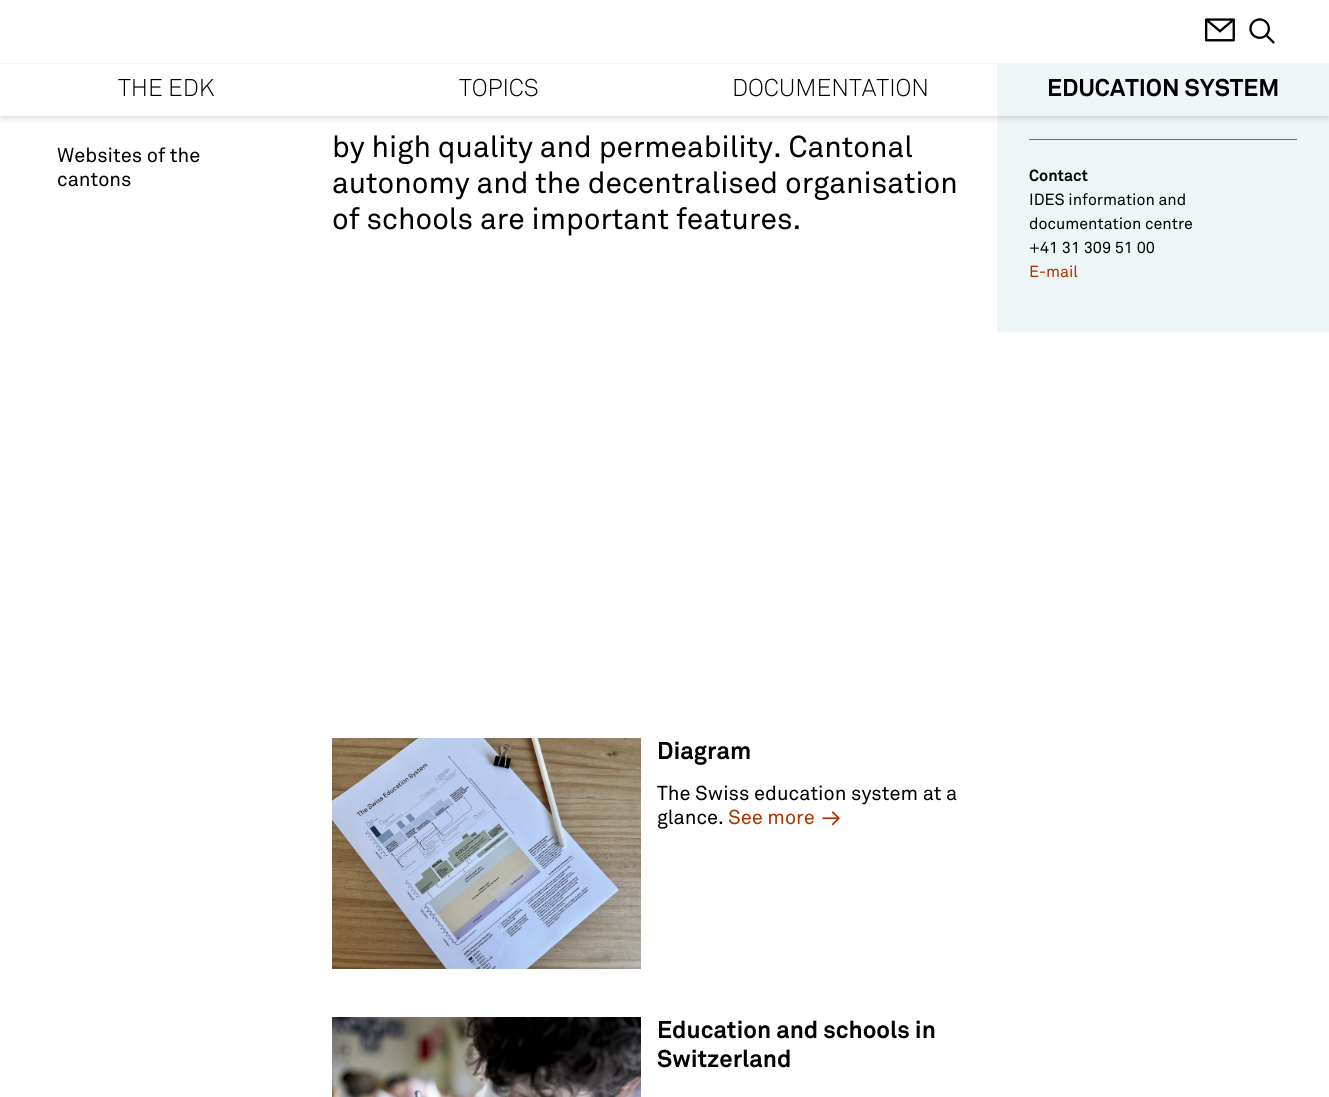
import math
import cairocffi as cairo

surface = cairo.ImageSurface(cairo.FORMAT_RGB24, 1329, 1097)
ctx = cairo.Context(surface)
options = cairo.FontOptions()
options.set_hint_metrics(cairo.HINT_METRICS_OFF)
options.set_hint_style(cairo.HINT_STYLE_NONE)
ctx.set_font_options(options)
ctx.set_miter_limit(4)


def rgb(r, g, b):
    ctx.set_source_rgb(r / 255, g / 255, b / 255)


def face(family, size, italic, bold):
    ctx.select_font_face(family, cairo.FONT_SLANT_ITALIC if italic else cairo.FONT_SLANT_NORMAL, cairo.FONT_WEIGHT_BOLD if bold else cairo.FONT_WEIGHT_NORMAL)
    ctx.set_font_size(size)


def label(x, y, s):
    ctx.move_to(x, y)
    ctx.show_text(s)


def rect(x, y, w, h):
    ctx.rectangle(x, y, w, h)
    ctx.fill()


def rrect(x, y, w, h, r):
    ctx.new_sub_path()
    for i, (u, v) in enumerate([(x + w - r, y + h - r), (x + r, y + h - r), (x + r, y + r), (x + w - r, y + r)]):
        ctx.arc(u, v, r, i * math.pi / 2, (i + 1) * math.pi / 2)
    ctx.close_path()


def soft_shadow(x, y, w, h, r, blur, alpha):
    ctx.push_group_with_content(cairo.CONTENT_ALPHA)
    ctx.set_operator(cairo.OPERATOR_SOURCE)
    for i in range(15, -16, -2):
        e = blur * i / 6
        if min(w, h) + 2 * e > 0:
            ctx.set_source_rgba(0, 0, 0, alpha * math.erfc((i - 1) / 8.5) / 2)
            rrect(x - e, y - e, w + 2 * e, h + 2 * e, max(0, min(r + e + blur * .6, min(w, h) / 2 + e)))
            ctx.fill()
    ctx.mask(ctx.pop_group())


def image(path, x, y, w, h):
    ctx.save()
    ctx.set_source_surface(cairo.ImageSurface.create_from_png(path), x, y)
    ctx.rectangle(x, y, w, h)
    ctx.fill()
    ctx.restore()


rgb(255, 255, 255)
ctx.paint()
rgb(238, 245, 247)
rect(997, 116, 332, 216)
rgb(0, 0, 0)
soft_shadow(1, 2, 1327, 115, 0, 2, 0.06)
soft_shadow(1, 4, 1327, 115, 0, 3, 0.1)
rgb(255, 255, 255)
rect(0, 0, 1329, 116)
image('image0.png', 1205, 18, 30, 24)
image('image1.png', 1249, 18, 26, 26)
rgb(238, 245, 247)
rect(0, 63, 1329, 1)
face('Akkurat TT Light', 24, 0, 0)
rgb(0, 0, 0)
label(118, 96, 'THE EDK')
label(459, 96, 'TOPICS')
label(732, 96, 'DOCUMENTATION')
rgb(238, 245, 247)
rect(997, 64, 332, 52)
face('Akkurat TT', 24, 0, 1)
rgb(0, 0, 0)
label(1047, 96, 'EDUCATION SYSTEM')
face('Akkurat TT', 20, 0, 0)
label(57, 162, 'Websites of the')
label(57, 186, 'cantons')
face('Akkurat TT', 29.9, 0, 0)
label(332, 157, 'by high quality and permeability. Cantonal')
label(332, 193, 'autonomy and the decentralised organisation')
label(332, 229, 'of schools are important features.')
image('image2.png', 332, 738, 309, 231)
face('Akkurat TT', 24, 0, 1)
label(657, 759, 'Diagram')
face('Akkurat TT', 20, 0, 0)
label(657, 800, 'The Swiss education system at a')
label(657, 824, 'glance.')
rgb(173, 52, 0)
label(728, 824, 'See more')
image('image3.png', 822, 811, 18, 15)
image('image4.png', 332, 1017, 309, 80)
face('Akkurat TT', 24, 0, 1)
rgb(0, 0, 0)
label(657, 1038, 'Education and schools in')
label(657, 1067, 'Switzerland')
rgb(112, 112, 112)
rect(1029, 139, 268, 1)
face('Akkurat TT', 16, 0, 1)
rgb(0, 0, 0)
label(1029, 181, 'Contact')
face('Akkurat TT', 16, 0, 0)
label(1029, 205, 'IDES information and')
label(1029, 229, 'documentation centre')
label(1029, 253, '+41 31 309 51 00')
rgb(173, 52, 0)
label(1029, 277, 'E-mail')
surface.write_to_png('render.png')
